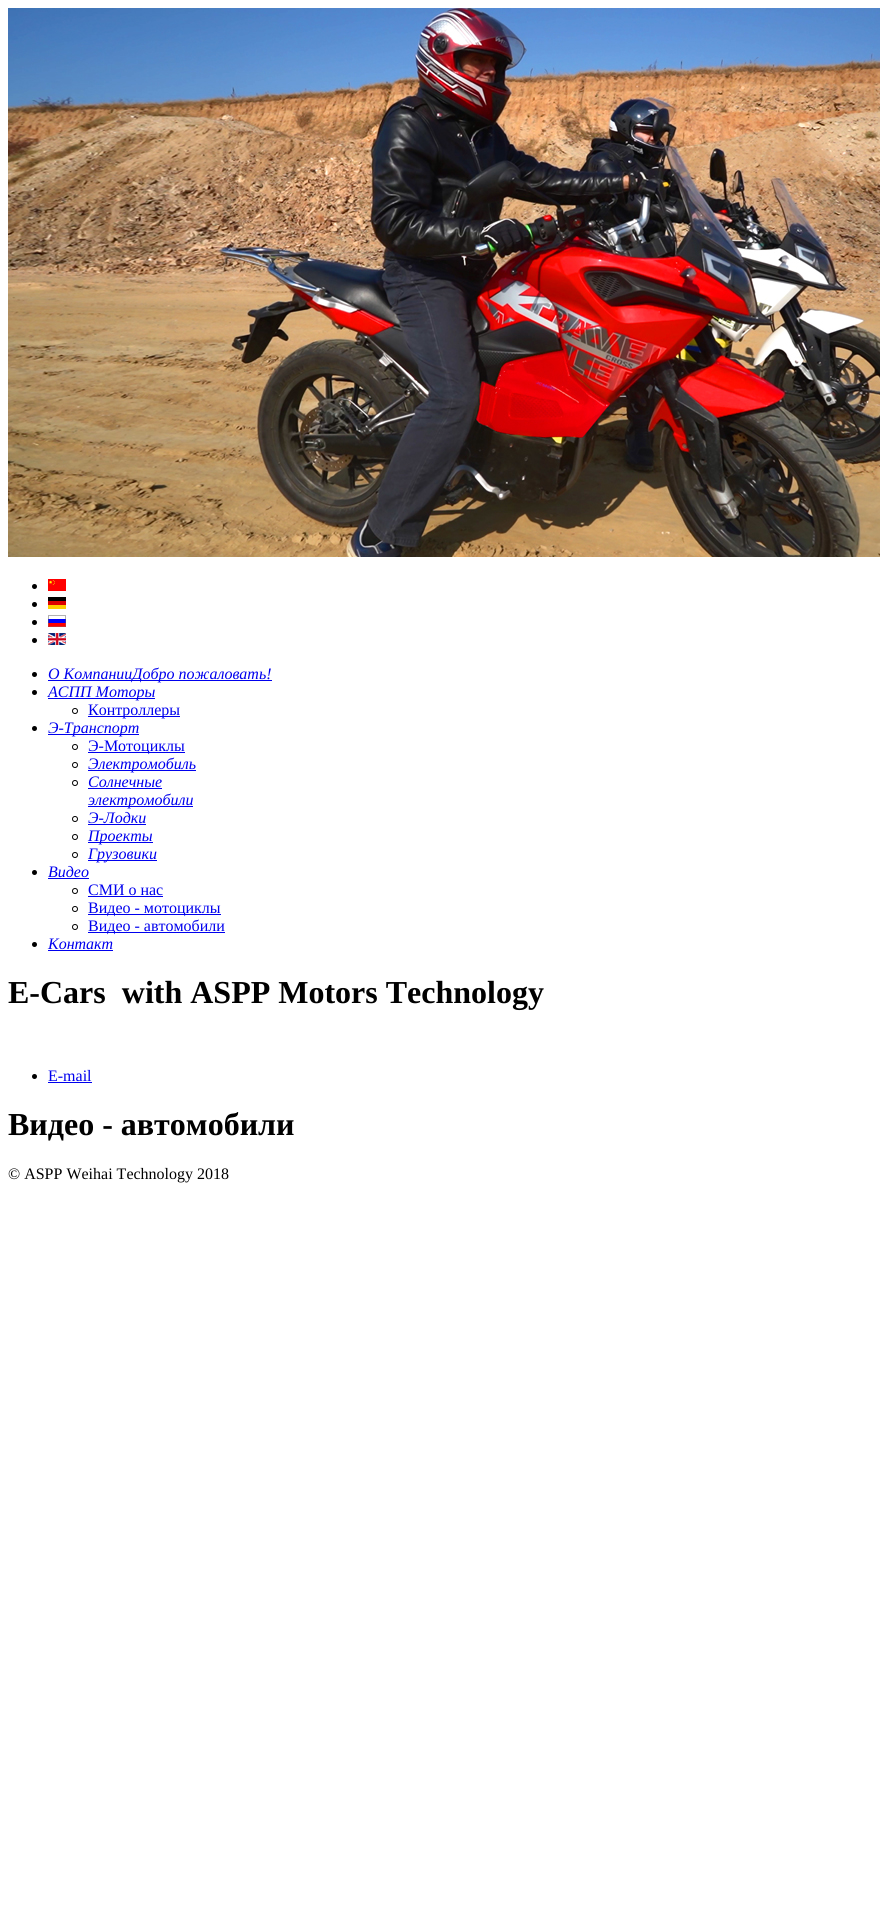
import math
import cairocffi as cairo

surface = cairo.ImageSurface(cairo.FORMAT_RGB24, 880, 1923)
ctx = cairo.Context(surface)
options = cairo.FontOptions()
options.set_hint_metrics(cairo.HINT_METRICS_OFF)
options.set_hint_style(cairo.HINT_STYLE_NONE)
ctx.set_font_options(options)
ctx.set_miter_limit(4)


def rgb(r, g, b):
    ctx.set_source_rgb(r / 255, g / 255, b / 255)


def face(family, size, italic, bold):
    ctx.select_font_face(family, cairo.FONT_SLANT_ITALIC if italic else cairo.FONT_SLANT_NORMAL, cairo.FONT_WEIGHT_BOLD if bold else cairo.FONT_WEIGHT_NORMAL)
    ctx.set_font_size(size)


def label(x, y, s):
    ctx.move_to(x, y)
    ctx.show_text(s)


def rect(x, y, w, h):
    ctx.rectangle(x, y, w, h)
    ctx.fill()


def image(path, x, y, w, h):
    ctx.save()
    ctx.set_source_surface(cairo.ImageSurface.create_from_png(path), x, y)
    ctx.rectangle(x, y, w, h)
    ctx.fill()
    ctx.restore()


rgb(255, 255, 255)
ctx.paint()
image('image0.png', 8, 8, 872, 549)
rgb(0, 0, 0)
ctx.arc(34.5, 586.5, 2.5, 0, 2 * math.pi)
ctx.fill()
image('image1.png', 48, 579, 18, 12)
ctx.arc(34.5, 604.5, 2.5, 0, 2 * math.pi)
ctx.fill()
image('image2.png', 48, 597, 18, 12)
ctx.arc(34.5, 622.5, 2.5, 0, 2 * math.pi)
ctx.fill()
image('image3.png', 48, 615, 18, 12)
ctx.arc(34.5, 640.5, 2.5, 0, 2 * math.pi)
ctx.fill()
image('image4.png', 48, 633, 18, 12)
ctx.arc(34.5, 674.5, 2.5, 0, 2 * math.pi)
ctx.fill()
rgb(0, 0, 238)
rect(48, 680, 224, 1)
face('Liberation Serif', 16, 1, 0)
label(48, 679, 'О КомпанииДобро пожаловать!')
rgb(0, 0, 0)
ctx.new_path()
ctx.arc(34.5, 692.5, 2.5, 0, 2 * math.pi)
ctx.fill()
rgb(0, 0, 238)
rect(48, 698, 107, 1)
label(48, 697, 'АСПП Моторы')
ctx.new_path()
ctx.arc(75, 711, 2.5, 0, 2 * math.pi)
rgb(0, 0, 0)
ctx.set_line_width(1)
ctx.stroke()
rgb(0, 0, 238)
rect(88, 716, 92, 1)
face('Liberation Serif', 16, 0, 0)
label(88, 715, 'Контроллеры')
rgb(0, 0, 0)
ctx.new_path()
ctx.arc(34.5, 728.5, 2.5, 0, 2 * math.pi)
ctx.fill()
rgb(0, 0, 238)
rect(48, 734, 91, 1)
face('Liberation Serif', 16, 1, 0)
label(48, 733, 'Э-Транспорт')
ctx.new_path()
ctx.arc(75, 747, 2.5, 0, 2 * math.pi)
rgb(0, 0, 0)
ctx.stroke()
rgb(0, 0, 238)
rect(88, 752, 97, 1)
face('Liberation Serif', 16, 0, 0)
label(88, 751, 'Э-Мотоциклы')
ctx.new_path()
ctx.arc(75, 765, 2.5, 0, 2 * math.pi)
rgb(0, 0, 0)
ctx.stroke()
rgb(0, 0, 238)
rect(88, 770, 108, 1)
face('Liberation Serif', 16, 1, 0)
label(88, 769, 'Электромобиль')
ctx.new_path()
ctx.arc(75, 783, 2.5, 0, 2 * math.pi)
rgb(0, 0, 0)
ctx.stroke()
rgb(0, 0, 238)
label(88, 787, 'Солнечные')
rect(88, 788, 74, 1)
rect(88, 806, 105, 1)
label(88, 805, 'электромобили')
ctx.new_path()
ctx.arc(75, 819, 2.5, 0, 2 * math.pi)
rgb(0, 0, 0)
ctx.stroke()
rgb(0, 0, 238)
label(88, 823, 'Э-Лодки')
rect(88, 824, 58, 1)
ctx.new_path()
ctx.arc(75, 837, 2.5, 0, 2 * math.pi)
rgb(0, 0, 0)
ctx.stroke()
rgb(0, 0, 238)
rect(88, 842, 65, 1)
label(88, 841, 'Проекты')
ctx.new_path()
ctx.arc(75, 855, 2.5, 0, 2 * math.pi)
rgb(0, 0, 0)
ctx.stroke()
rgb(0, 0, 238)
rect(88, 860, 69, 1)
label(88, 859, 'Грузовики')
rgb(0, 0, 0)
ctx.new_path()
ctx.arc(34.5, 872.5, 2.5, 0, 2 * math.pi)
ctx.fill()
rgb(0, 0, 238)
label(48, 877, 'Видео')
rect(48, 878, 41, 1)
ctx.new_path()
ctx.arc(75, 891, 2.5, 0, 2 * math.pi)
rgb(0, 0, 0)
ctx.stroke()
face('Liberation Serif', 16, 0, 0)
rgb(0, 0, 238)
label(88, 895, 'СМИ о нас')
rect(88, 896, 75, 1)
ctx.new_path()
ctx.arc(75, 909, 2.5, 0, 2 * math.pi)
rgb(0, 0, 0)
ctx.stroke()
rgb(0, 0, 238)
rect(88, 914, 133, 1)
label(88, 913, 'Видео - мотоциклы')
ctx.new_path()
ctx.arc(75, 927, 2.5, 0, 2 * math.pi)
rgb(0, 0, 0)
ctx.stroke()
rgb(0, 0, 238)
rect(88, 932, 137, 1)
label(88, 931, 'Видео - автомобили')
rgb(0, 0, 0)
ctx.new_path()
ctx.arc(34.5, 944.5, 2.5, 0, 2 * math.pi)
ctx.fill()
face('Liberation Serif', 16, 1, 0)
rgb(0, 0, 238)
label(48, 949, 'Контакт')
rect(48, 950, 65, 1)
face('Liberation Serif', 32, 0, 1)
rgb(0, 0, 0)
label(8, 1003, 'E-Cars  with ASPP Motors Technology')
ctx.new_path()
ctx.arc(34.5, 1076.5, 2.5, 0, 2 * math.pi)
ctx.fill()
face('Liberation Serif', 16, 0, 0)
rgb(0, 0, 238)
label(48, 1081, 'E-mail')
rect(48, 1082, 44, 1)
face('Liberation Serif', 32, 0, 1)
rgb(0, 0, 0)
label(8, 1135, 'Видео - автомобили')
face('Liberation Serif', 16, 0, 0)
label(8, 1179, '© ASPP Weihai Technology 2018')
surface.write_to_png('render.png')
